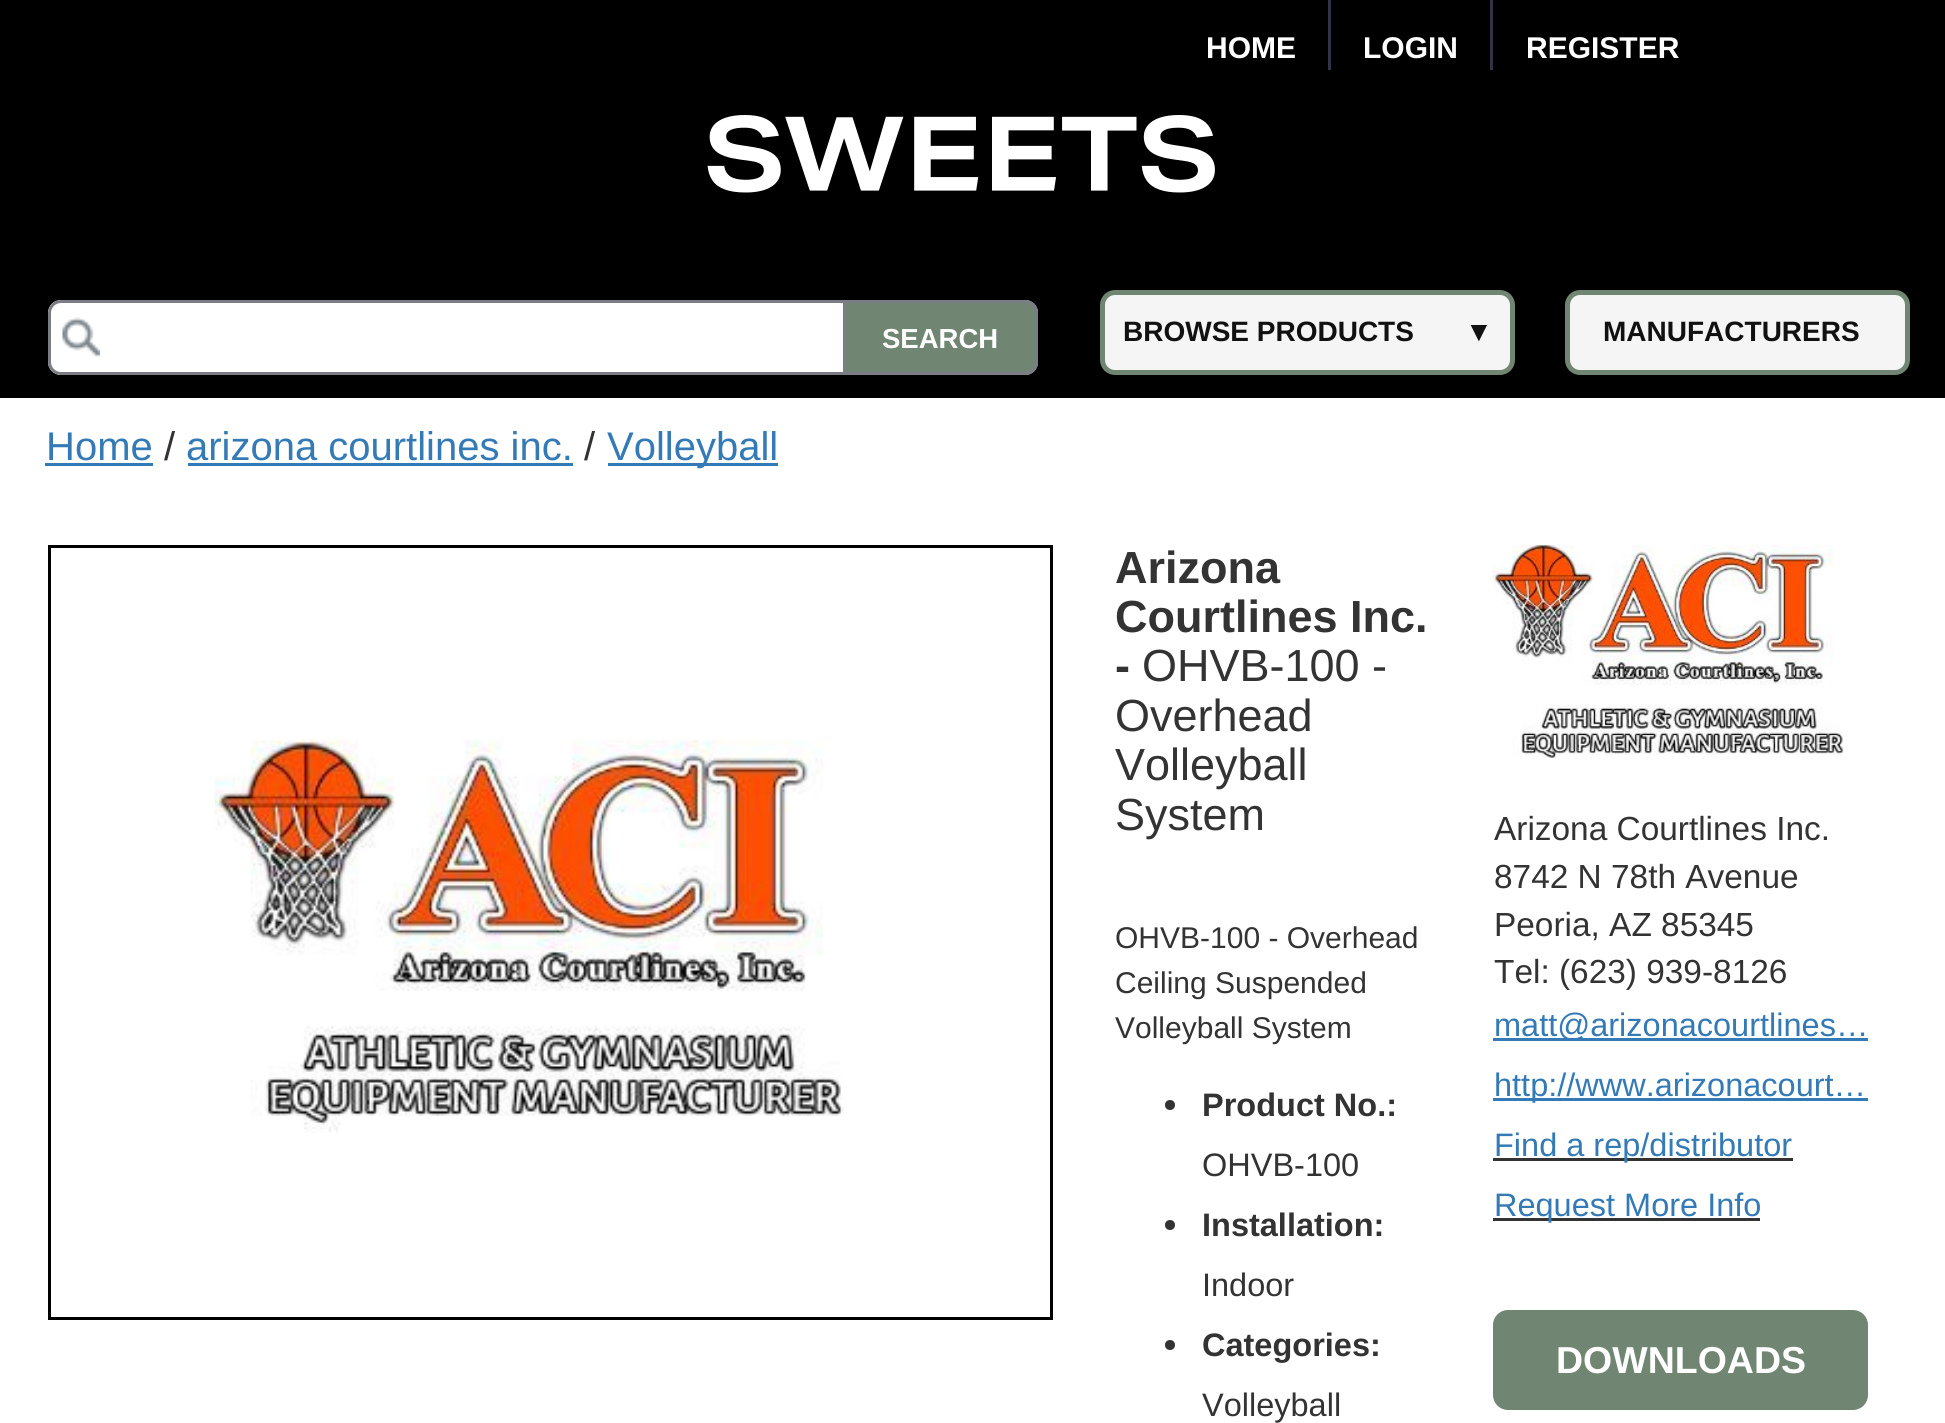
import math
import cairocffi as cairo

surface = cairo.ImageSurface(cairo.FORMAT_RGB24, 1945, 1423)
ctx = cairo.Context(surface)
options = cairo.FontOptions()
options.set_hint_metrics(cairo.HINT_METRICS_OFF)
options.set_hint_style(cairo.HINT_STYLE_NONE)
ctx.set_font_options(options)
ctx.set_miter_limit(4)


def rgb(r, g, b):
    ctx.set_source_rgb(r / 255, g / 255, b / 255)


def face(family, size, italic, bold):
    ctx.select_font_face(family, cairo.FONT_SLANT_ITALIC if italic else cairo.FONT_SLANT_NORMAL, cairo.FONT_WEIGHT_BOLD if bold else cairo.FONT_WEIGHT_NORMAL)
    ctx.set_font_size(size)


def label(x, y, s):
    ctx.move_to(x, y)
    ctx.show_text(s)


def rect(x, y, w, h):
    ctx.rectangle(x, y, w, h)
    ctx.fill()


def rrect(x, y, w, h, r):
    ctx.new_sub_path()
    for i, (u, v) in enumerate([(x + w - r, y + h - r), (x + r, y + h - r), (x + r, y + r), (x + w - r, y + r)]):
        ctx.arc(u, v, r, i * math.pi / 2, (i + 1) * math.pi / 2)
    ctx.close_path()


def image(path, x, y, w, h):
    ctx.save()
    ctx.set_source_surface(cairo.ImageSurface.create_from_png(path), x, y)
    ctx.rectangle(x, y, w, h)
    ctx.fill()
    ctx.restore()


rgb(0, 0, 0)
ctx.paint()
face('Liberation Sans', 30, 0, 1)
rgb(255, 255, 255)
label(1206, 58, 'HOME')
rgb(49, 52, 66)
rect(1328, 0, 3, 70)
rgb(255, 255, 255)
label(1363, 58, 'LOGIN')
rgb(49, 52, 66)
rect(1490, 0, 3, 70)
rgb(255, 255, 255)
label(1526, 58, 'REGISTER')
image('image0.png', 707, 115, 508, 78)
rrect(48, 300, 990, 75, 13)
ctx.fill()
image('image1.png', 62, 317, 38, 41)
rrect(49.5, 301.5, 987, 72, 11.5)
rgb(122, 125, 132)
ctx.set_line_width(3)
ctx.stroke()
rgb(112, 134, 114)
ctx.new_path()
ctx.move_to(844.5, 301.5)
ctx.line_to(1025, 301.5)
ctx.curve_to(1031.5, 301.5, 1036.5, 306.5, 1036.5, 313)
ctx.line_to(1036.5, 362)
ctx.curve_to(1036.5, 368.5, 1031.5, 373.5, 1025, 373.5)
ctx.line_to(844.5, 373.5)
ctx.close_path()
ctx.fill_preserve()
rgb(122, 125, 132)
ctx.stroke()
face('Liberation Sans', 27.5, 0, 1)
rgb(255, 255, 255)
label(882, 348, 'SEARCH')
rgb(245, 245, 245)
rrect(1102.5, 292.5, 410, 80, 12.5)
ctx.fill_preserve()
rgb(112, 134, 114)
ctx.set_line_width(5)
ctx.stroke()
face('Liberation Sans', 28, 0, 1)
rgb(17, 17, 17)
label(1123, 341, 'BROWSE PRODUCTS')
label(1465, 341, '▼')
rgb(245, 245, 245)
rrect(1567.5, 292.5, 340, 80, 12.5)
ctx.fill_preserve()
rgb(112, 134, 114)
ctx.stroke()
rgb(17, 17, 17)
label(1603, 341, 'MANUFACTURERS')
rgb(255, 255, 255)
rect(0, 398, 1945, 1025)
face('Liberation Sans', 40, 0, 0)
rgb(51, 122, 183)
label(46, 460, 'Home')
rect(45, 463, 108, 3)
rgb(51, 51, 51)
label(164, 460, '/')
rgb(51, 122, 183)
label(186, 460, 'arizona courtlines inc.')
rect(188, 463, 385, 3)
rgb(51, 51, 51)
label(584, 460, '/')
rgb(51, 122, 183)
rect(608, 463, 170, 3)
label(607, 460, 'Volleyball')
ctx.rectangle(49.5, 546.5, 1002, 772)
rgb(0, 0, 0)
ctx.set_line_width(3)
ctx.stroke()
image('image2.png', 215, 738, 629, 395)
face('Liberation Sans', 45, 0, 1)
rgb(51, 51, 51)
label(1115, 583, 'Arizona')
label(1115, 632, 'Courtlines Inc.')
label(1115, 681, '-')
face('Liberation Sans', 45, 0, 0)
label(1142, 681, 'OHVB-100 -')
label(1115, 731, 'Overhead')
label(1115, 780, 'Volleyball')
label(1115, 830, 'System')
face('Liberation Sans', 30, 0, 0)
label(1115, 948, 'OHVB-100 - Overhead')
label(1115, 993, 'Ceiling Suspended')
label(1115, 1038, 'Volleyball System')
ctx.new_path()
ctx.arc(1170, 1105, 5, 0, 2 * math.pi)
ctx.fill()
face('Liberation Sans', 32.5, 0, 1)
label(1202, 1116, 'Product No.:')
face('Liberation Sans', 32.5, 0, 0)
label(1202, 1176, 'OHVB-100')
ctx.new_path()
ctx.arc(1170, 1225, 5, 0, 2 * math.pi)
ctx.fill()
face('Liberation Sans', 32.5, 0, 1)
label(1202, 1236, 'Installation:')
face('Liberation Sans', 32.5, 0, 0)
label(1202, 1296, 'Indoor')
ctx.new_path()
ctx.arc(1170, 1345, 5, 0, 2 * math.pi)
ctx.fill()
face('Liberation Sans', 32.5, 0, 1)
label(1202, 1356, 'Categories:')
face('Liberation Sans', 32.5, 0, 0)
label(1202, 1416, 'Volleyball')
image('image3.png', 1492, 545, 352, 213)
face('Liberation Sans', 33.4, 0, 0)
label(1494, 840, 'Arizona Courtlines Inc.')
label(1494, 888, '8742 N 78th Avenue')
label(1494, 936, 'Peoria, AZ 85345')
label(1494, 983, 'Tel: (623) 939-8126')
rgb(51, 122, 183)
rect(1493, 1038, 375, 3)
face('Liberation Sans', 32.5, 0, 0)
label(1494, 1036, 'matt@arizonacourtlines…')
rect(1493, 1098, 375, 3)
label(1494, 1096, 'http://www.arizonacourt…')
rgb(51, 51, 51)
rect(1493, 1158, 300, 3)
rgb(51, 122, 183)
label(1494, 1156, 'Find a rep/distributor')
rgb(51, 51, 51)
rect(1493, 1218, 267, 3)
rgb(51, 122, 183)
label(1494, 1216, 'Request More Info')
rgb(112, 134, 114)
rrect(1493, 1310, 375, 100, 15)
ctx.fill()
face('Liberation Sans', 37.5, 0, 1)
rgb(255, 255, 255)
label(1556, 1373, 'DOWNLOADS')
surface.write_to_png('render.png')
